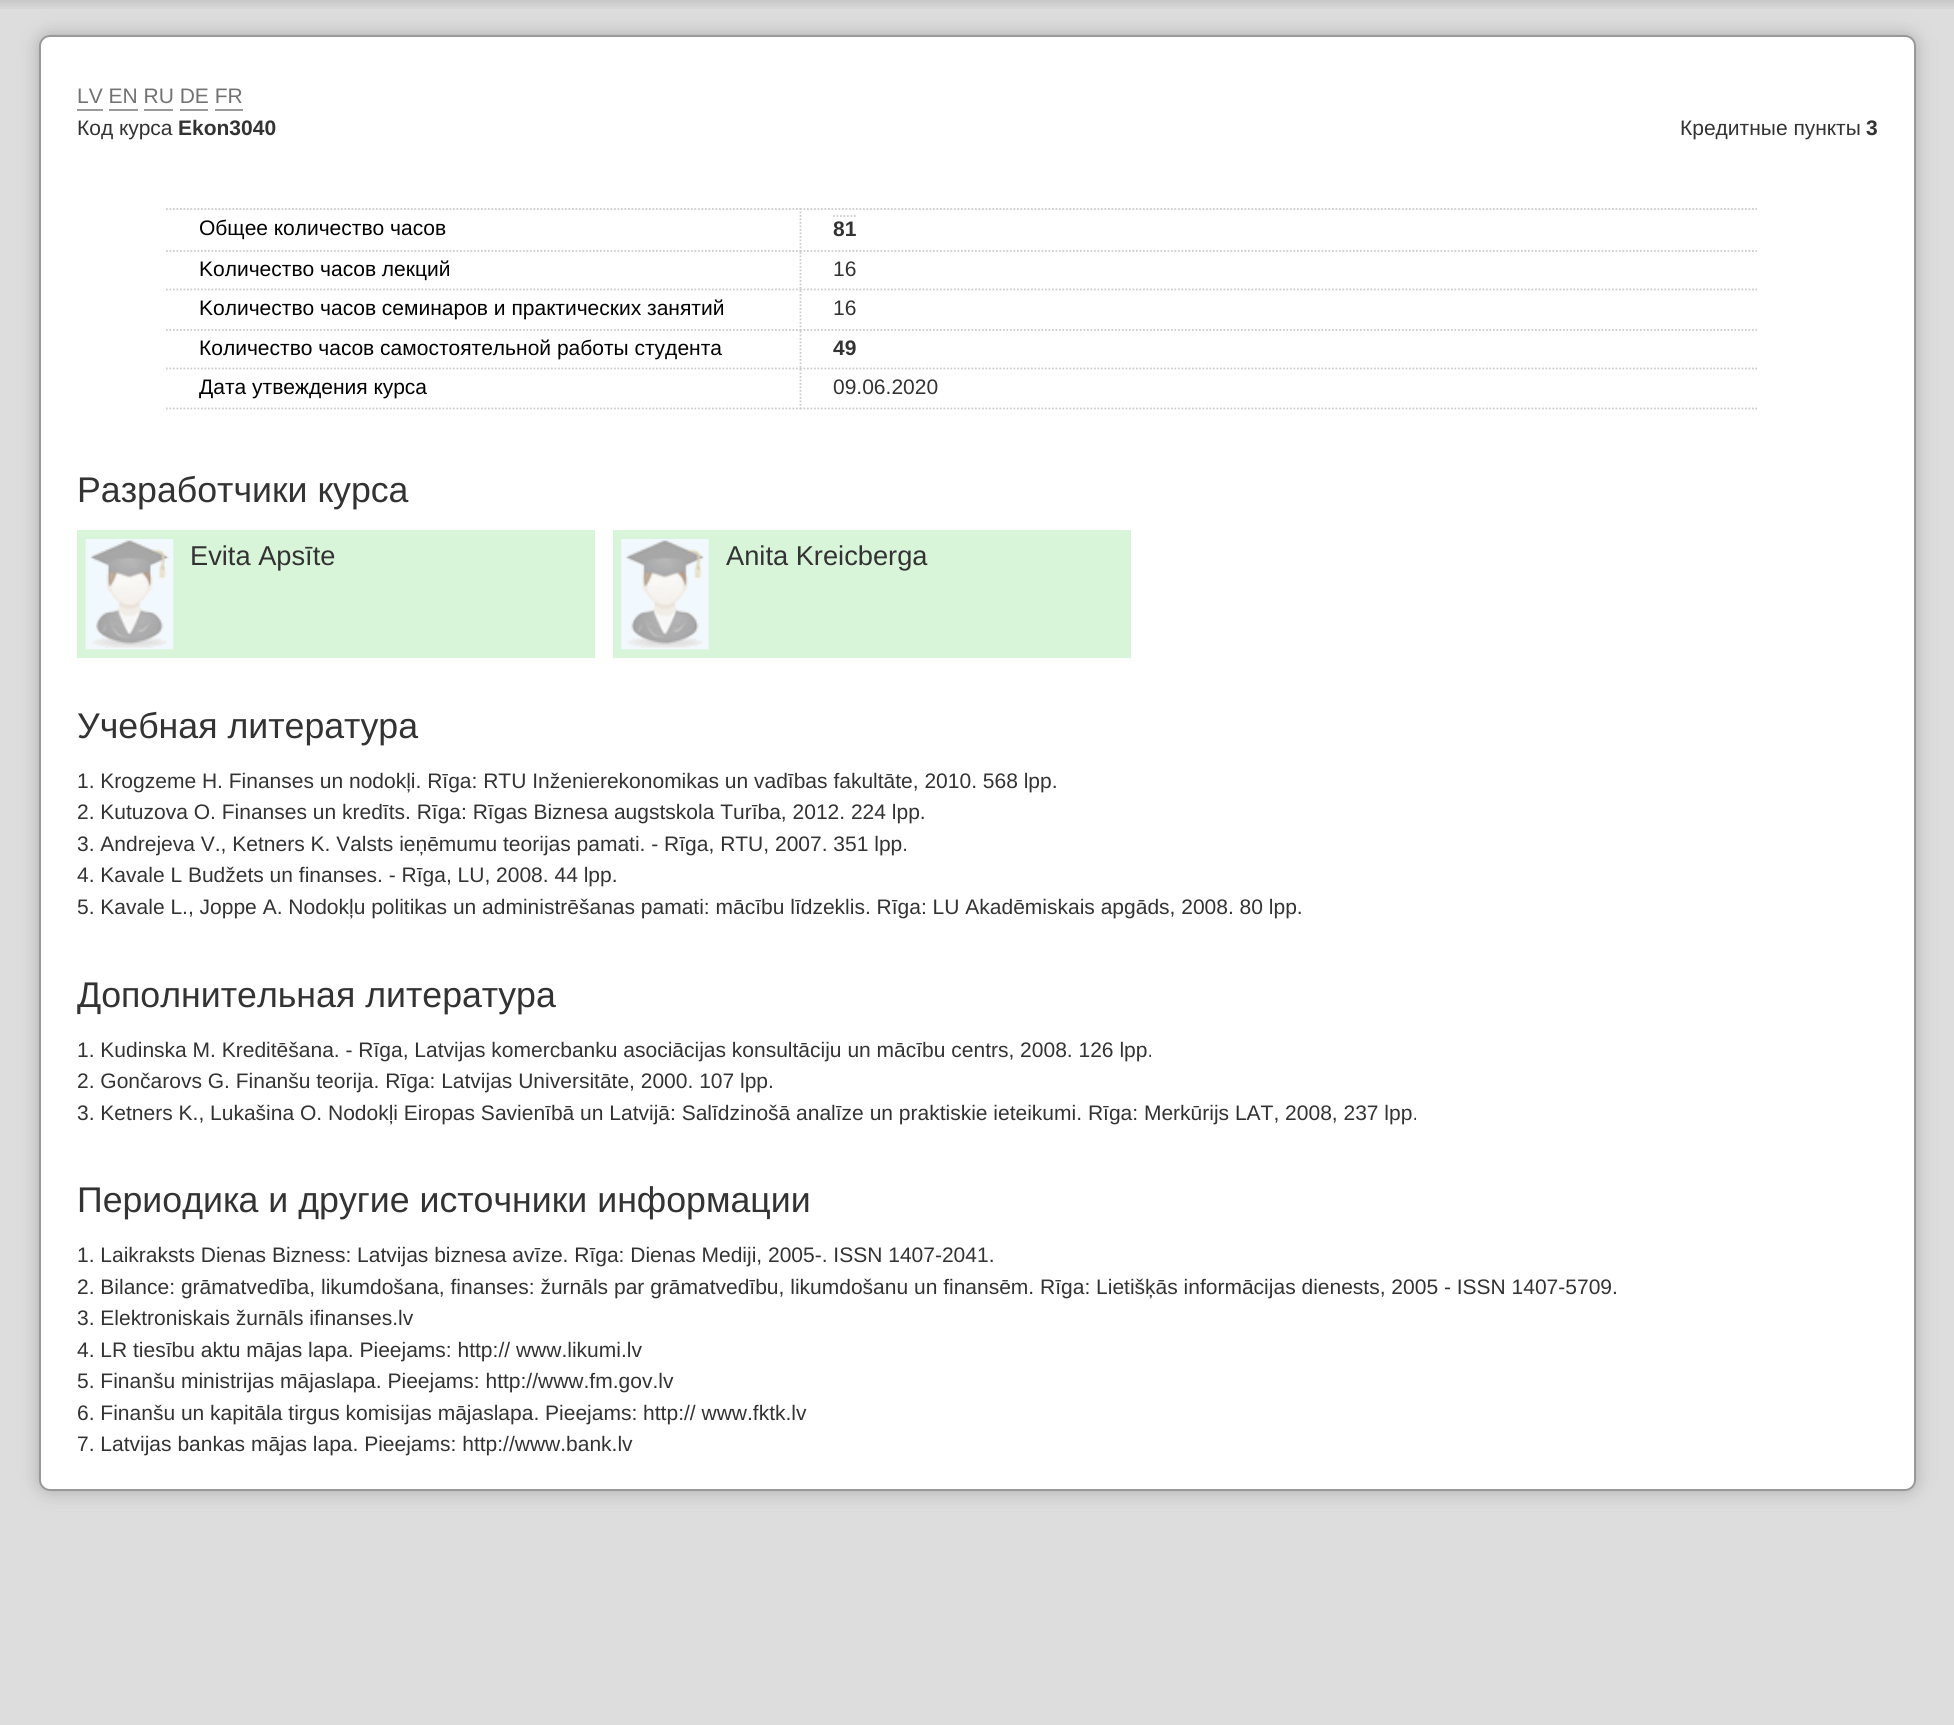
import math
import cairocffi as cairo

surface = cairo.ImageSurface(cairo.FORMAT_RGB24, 1954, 1725)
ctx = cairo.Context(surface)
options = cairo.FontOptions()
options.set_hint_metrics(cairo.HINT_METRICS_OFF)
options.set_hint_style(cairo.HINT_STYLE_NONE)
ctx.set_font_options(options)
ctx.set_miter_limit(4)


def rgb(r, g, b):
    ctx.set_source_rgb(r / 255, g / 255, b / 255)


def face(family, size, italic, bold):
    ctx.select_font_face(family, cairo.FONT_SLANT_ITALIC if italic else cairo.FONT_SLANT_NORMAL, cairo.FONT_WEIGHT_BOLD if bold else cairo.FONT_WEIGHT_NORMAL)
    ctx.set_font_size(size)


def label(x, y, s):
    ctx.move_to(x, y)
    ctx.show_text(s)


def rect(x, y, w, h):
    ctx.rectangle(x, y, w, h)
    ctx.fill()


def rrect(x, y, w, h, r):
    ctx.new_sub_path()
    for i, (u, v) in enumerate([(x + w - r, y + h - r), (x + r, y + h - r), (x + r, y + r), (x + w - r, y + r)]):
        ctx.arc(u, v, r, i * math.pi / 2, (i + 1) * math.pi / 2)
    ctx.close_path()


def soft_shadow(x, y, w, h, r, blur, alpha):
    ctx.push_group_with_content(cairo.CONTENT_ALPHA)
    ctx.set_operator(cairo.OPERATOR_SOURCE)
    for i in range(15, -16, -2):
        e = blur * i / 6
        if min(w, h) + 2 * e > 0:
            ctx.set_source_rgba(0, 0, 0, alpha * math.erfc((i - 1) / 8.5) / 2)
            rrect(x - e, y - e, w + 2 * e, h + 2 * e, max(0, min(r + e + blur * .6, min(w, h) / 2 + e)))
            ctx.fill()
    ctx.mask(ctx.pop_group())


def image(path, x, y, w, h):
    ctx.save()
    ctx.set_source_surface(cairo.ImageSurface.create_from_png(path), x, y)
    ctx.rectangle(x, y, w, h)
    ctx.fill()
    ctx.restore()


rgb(221, 221, 221)
ctx.paint()
image('image0.png', 0, 0, 1954, 9)
rgb(170, 170, 170)
soft_shadow(39, 35, 1877, 1456, 11, 9, 1)
rgb(255, 255, 255)
rrect(40, 36, 1875, 1454, 10)
ctx.fill_preserve()
rgb(153, 153, 153)
ctx.stroke()
face('Liberation Sans', 21, 0, 0)
rgb(114, 114, 114)
label(77, 103, 'LV EN RU DE FR')
rgb(154, 154, 154)
rect(77, 109, 26, 2)
rect(109, 109, 29, 2)
rect(144, 109, 29, 2)
rect(180, 109, 28, 2)
rect(215, 109, 28, 2)
rgb(51, 51, 51)
label(77, 135, 'Код курса')
face('Liberation Sans', 21, 0, 1)
label(178, 135, 'Ekon3040')
face('Liberation Sans', 21, 0, 0)
label(1680, 135, 'Кредитные пункты')
face('Liberation Sans', 21, 0, 1)
label(1866, 135, '3')
ctx.new_path()
ctx.move_to(166, 209)
ctx.line_to(800, 209)
rgb(204, 204, 204)
ctx.set_line_width(1.8)
ctx.set_dash([1.75, 1.75])
ctx.stroke()
ctx.new_path()
ctx.move_to(166, 251)
ctx.line_to(800, 251)
ctx.stroke()
face('Liberation Sans', 21, 0, 0)
rgb(0, 0, 0)
label(199, 235, 'Общее количество часов')
ctx.new_path()
ctx.move_to(800, 209)
ctx.line_to(1757, 209)
rgb(204, 204, 204)
ctx.stroke()
ctx.new_path()
ctx.move_to(800, 251)
ctx.line_to(1757, 251)
ctx.stroke()
ctx.new_path()
ctx.move_to(800.5, 208)
ctx.line_to(800.5, 252)
ctx.move_to(833, 216)
ctx.line_to(856, 216)
ctx.stroke()
face('Liberation Sans', 21, 0, 1)
rgb(51, 51, 51)
label(833, 236, '81')
ctx.new_path()
ctx.move_to(166, 289.5)
ctx.line_to(800, 289.5)
rgb(204, 204, 204)
ctx.stroke()
face('Liberation Sans', 21, 0, 0)
rgb(0, 0, 0)
label(199, 276, 'Kоличество часов лекций')
ctx.new_path()
ctx.move_to(800, 289.5)
ctx.line_to(1757, 289.5)
rgb(204, 204, 204)
ctx.stroke()
ctx.new_path()
ctx.move_to(800.5, 252)
ctx.line_to(800.5, 290.5)
ctx.stroke()
rgb(51, 51, 51)
label(833, 276, '16')
ctx.new_path()
ctx.move_to(166, 330)
ctx.line_to(800, 330)
rgb(204, 204, 204)
ctx.stroke()
rgb(0, 0, 0)
label(199, 315, 'Kоличество часов семинаров и практических занятий')
ctx.new_path()
ctx.move_to(800, 330)
ctx.line_to(1757, 330)
rgb(204, 204, 204)
ctx.stroke()
ctx.new_path()
ctx.move_to(800.5, 290.5)
ctx.line_to(800.5, 331)
ctx.stroke()
rgb(51, 51, 51)
label(833, 315, '16')
ctx.new_path()
ctx.move_to(166, 368.5)
ctx.line_to(800, 368.5)
rgb(204, 204, 204)
ctx.stroke()
rgb(0, 0, 0)
label(199, 355, 'Количество часов самостоятельной работы студента')
ctx.new_path()
ctx.move_to(800, 368.5)
ctx.line_to(1757, 368.5)
rgb(204, 204, 204)
ctx.stroke()
ctx.new_path()
ctx.move_to(800.5, 331)
ctx.line_to(800.5, 369)
ctx.stroke()
face('Liberation Sans', 21, 0, 1)
rgb(51, 51, 51)
label(833, 355, '49')
ctx.new_path()
ctx.move_to(166, 408.5)
ctx.line_to(800, 408.5)
rgb(204, 204, 204)
ctx.stroke()
face('Liberation Sans', 21, 0, 0)
rgb(0, 0, 0)
label(199, 394, 'Дата утвеждения курса')
ctx.new_path()
ctx.move_to(800, 408.5)
ctx.line_to(1757, 408.5)
rgb(204, 204, 204)
ctx.stroke()
ctx.new_path()
ctx.move_to(800.5, 369)
ctx.line_to(800.5, 409.5)
ctx.stroke()
rgb(51, 51, 51)
label(833, 394, '09.06.2020')
face('Liberation Sans', 35.7, 0, 0)
label(77, 502, 'Разработчики курса')
rgb(217, 245, 217)
rect(77, 530, 518, 128)
image('image1.png', 85, 539, 89, 111)
face('Liberation Sans', 27.25, 0, 0)
rgb(51, 51, 51)
label(190, 565, 'Evita Apsīte')
rgb(217, 245, 217)
rect(613, 530, 518, 128)
image('image2.png', 621, 539, 88, 111)
rgb(51, 51, 51)
label(726, 565, 'Anita Kreicberga')
face('Liberation Sans', 35.7, 0, 0)
label(77, 738, 'Учебная литературa')
face('Liberation Sans', 21, 0, 0)
label(77, 788, '1. Krogzeme H. Finanses un nodokļi. Rīga: RTU Inženierekonomikas un vadības fakultāte, 2010. 568 lpp.')
label(77, 819, '2. Kutuzova O. Finanses un kredīts. Rīga: Rīgas Biznesa augstskola Turība, 2012. 224 lpp.')
label(77, 851, '3. Andrejeva V., Ketners K. Valsts ieņēmumu teorijas pamati. - Rīga, RTU, 2007. 351 lpp.')
label(77, 882, '4. Kavale L Budžets un finanses. - Rīga, LU, 2008. 44 lpp.')
label(77, 914, '5. Kavale L., Joppe A. Nodokļu politikas un administrēšanas pamati: mācību līdzeklis. Rīga: LU Akadēmiskais apgāds, 2008. 80 lpp.')
face('Liberation Sans', 35.7, 0, 0)
label(77, 1007, 'Дополнительная литература')
face('Liberation Sans', 21, 0, 0)
label(77, 1057, '1. Kudinska M. Kreditēšana. - Rīga, Latvijas komercbanku asociācijas konsultāciju un mācību centrs, 2008. 126 lpp.')
label(77, 1088, '2. Gončarovs G. Finanšu teorija. Rīga: Latvijas Universitāte, 2000. 107 lpp.')
label(77, 1120, '3. Ketners K., Lukašina O. Nodokļi Eiropas Savienībā un Latvijā: Salīdzinošā analīze un praktiskie ieteikumi. Rīga: Merkūrijs LAT, 2008, 237 lpp.')
face('Liberation Sans', 35.7, 0, 0)
label(77, 1212, 'Периодика и другие источники информации')
face('Liberation Sans', 21, 0, 0)
label(77, 1262, '1. Laikraksts Dienas Bizness: Latvijas biznesa avīze. Rīga: Dienas Mediji, 2005-. ISSN 1407-2041.')
label(77, 1294, '2. Bilance: grāmatvedība, likumdošana, finanses: žurnāls par grāmatvedību, likumdošanu un finansēm. Rīga: Lietišķās informācijas dienests, 2005 - ISSN 1407-5709.')
label(77, 1325, '3. Elektroniskais žurnāls ifinanses.lv')
label(77, 1357, '4. LR tiesību aktu mājas lapa. Pieejams: http:// www.likumi.lv')
label(77, 1388, '5. Finanšu ministrijas mājaslapa. Pieejams: http://www.fm.gov.lv')
label(77, 1420, '6. Finanšu un kapitāla tirgus komisijas mājaslapa. Pieejams: http:// www.fktk.lv')
label(77, 1451, '7. Latvijas bankas mājas lapa. Pieejams: http://www.bank.lv')
surface.write_to_png('render.png')
